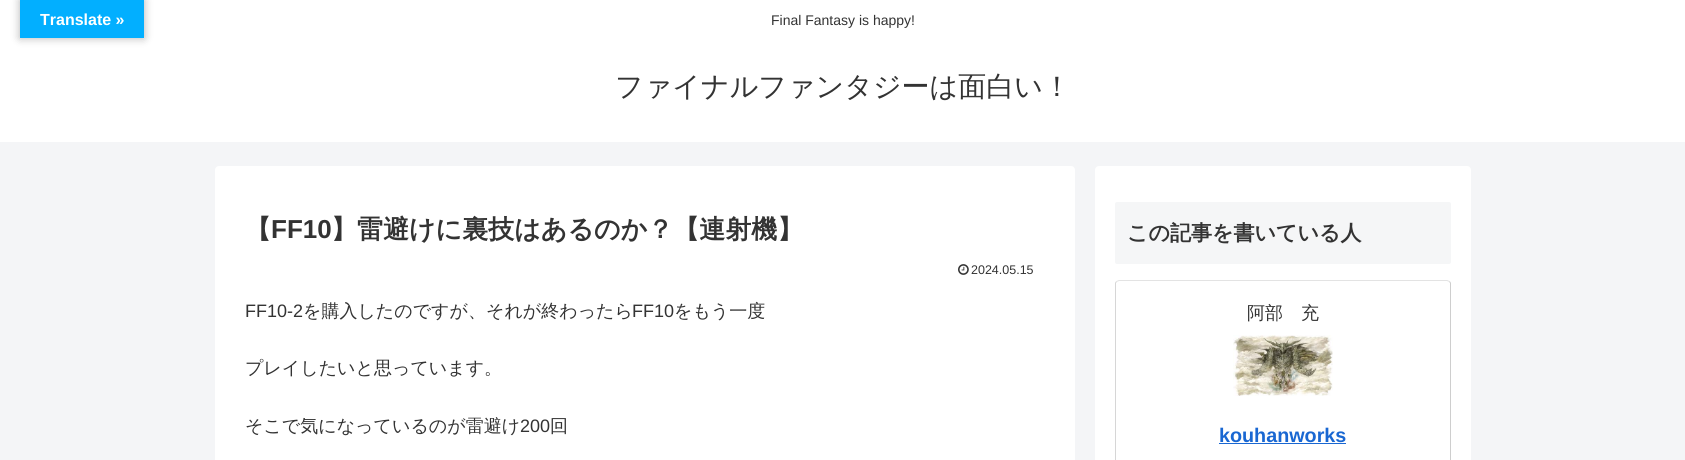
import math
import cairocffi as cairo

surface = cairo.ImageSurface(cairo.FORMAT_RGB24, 1685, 460)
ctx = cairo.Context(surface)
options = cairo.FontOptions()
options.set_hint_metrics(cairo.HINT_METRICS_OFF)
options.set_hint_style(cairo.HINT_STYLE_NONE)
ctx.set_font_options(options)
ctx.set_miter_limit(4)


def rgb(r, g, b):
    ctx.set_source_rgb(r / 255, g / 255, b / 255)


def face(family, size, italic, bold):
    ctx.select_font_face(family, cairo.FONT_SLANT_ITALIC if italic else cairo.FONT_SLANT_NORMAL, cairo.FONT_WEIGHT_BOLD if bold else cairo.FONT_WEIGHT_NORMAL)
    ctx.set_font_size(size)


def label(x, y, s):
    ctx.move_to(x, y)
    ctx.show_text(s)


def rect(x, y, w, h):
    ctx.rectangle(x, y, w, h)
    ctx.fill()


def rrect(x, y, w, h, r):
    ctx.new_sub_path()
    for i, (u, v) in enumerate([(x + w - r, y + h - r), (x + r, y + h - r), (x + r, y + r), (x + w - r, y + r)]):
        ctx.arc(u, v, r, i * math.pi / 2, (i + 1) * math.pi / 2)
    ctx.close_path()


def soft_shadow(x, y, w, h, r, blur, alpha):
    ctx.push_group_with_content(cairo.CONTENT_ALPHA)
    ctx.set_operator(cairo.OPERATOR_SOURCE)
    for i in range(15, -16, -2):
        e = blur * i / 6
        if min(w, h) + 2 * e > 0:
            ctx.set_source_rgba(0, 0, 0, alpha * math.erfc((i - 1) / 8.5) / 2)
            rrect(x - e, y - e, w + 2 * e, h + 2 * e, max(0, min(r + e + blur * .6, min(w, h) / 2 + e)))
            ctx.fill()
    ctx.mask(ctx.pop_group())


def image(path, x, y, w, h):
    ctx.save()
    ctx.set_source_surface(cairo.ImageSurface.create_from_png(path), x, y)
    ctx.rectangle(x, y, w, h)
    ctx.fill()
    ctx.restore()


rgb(244, 245, 247)
ctx.paint()
rgb(255, 255, 255)
rect(0, 0, 1685, 142)
rgb(0, 0, 0)
soft_shadow(20, 0, 124, 38, 0, 4.5, 0.3)
rgb(2, 175, 255)
rect(20, 0, 124, 38)
face('Liberation Sans', 16, 0, 1)
rgb(255, 255, 255)
label(40, 25, 'Translate »')
face('Liberation Sans', 14, 0, 0)
rgb(51, 51, 51)
label(771, 25, 'Final Fantasy is happy!')
face('WenQuanYi Zen Hei Medium', 28, 0, 0)
label(615, 96, 'ファイナルファンタジーは面白い！')
rgb(255, 255, 255)
rrect(215, 166, 860, 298, 4)
ctx.fill()
face('WenQuanYi Zen Hei', 26, 0, 1)
rgb(51, 51, 51)
label(245, 238, '【')
face('Liberation Sans', 26, 0, 1)
label(271, 238, 'FF10')
face('WenQuanYi Zen Hei', 26, 0, 1)
label(331, 238, '】雷避けに裏技はあるのか？【連射機】')
image('image0.png', 958, 264, 11, 11)
face('Liberation Sans', 12.5, 0, 0)
label(971, 274, '2024.05.15')
face('Liberation Sans', 18, 0, 0)
label(245, 317, 'FF10-2')
face('WenQuanYi Zen Hei Medium', 18, 0, 0)
label(303, 317, 'を購入したのですが、それが終わったら')
face('Liberation Sans', 18, 0, 0)
label(632, 317, 'FF10')
face('WenQuanYi Zen Hei Medium', 18, 0, 0)
label(674, 317, 'をもう一度')
label(245, 374, 'プレイしたいと思っています。')
label(245, 432, 'そこで気になっているのが雷避け')
face('Liberation Sans', 18, 0, 0)
label(520, 432, '200')
face('WenQuanYi Zen Hei Medium', 18, 0, 0)
label(550, 432, '回')
rgb(255, 255, 255)
rrect(1095, 166, 376, 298, 4)
ctx.fill()
rgb(245, 246, 247)
rrect(1115, 202, 336, 62, 2)
ctx.fill()
face('WenQuanYi Zen Hei', 21, 0, 1)
rgb(51, 51, 51)
label(1127, 240, 'この記事を書いている人')
ctx.new_path()
ctx.move_to(1116.5, 281.5)
ctx.line_to(1119, 280.5)
ctx.line_to(1447, 280.5)
ctx.line_to(1449.5, 281.5)
rgb(227, 227, 227)
ctx.set_line_width(1)
ctx.stroke()
ctx.new_path()
ctx.move_to(1449.5, 281.5)
ctx.line_to(1450.5, 283)
ctx.line_to(1450.5, 415.5)
ctx.line_to(1450.5, 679)
ctx.line_to(1449.5, 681.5)
rgb(206, 206, 206)
ctx.stroke()
ctx.new_path()
ctx.move_to(1116.5, 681.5)
ctx.line_to(1115.5, 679)
ctx.line_to(1115.5, 283)
ctx.line_to(1116.5, 281.5)
rgb(214, 214, 214)
ctx.stroke()
face('WenQuanYi Zen Hei Medium', 18, 0, 0)
rgb(51, 51, 51)
label(1247, 319, '阿部　充')
image('image1.png', 1233, 335, 100, 61)
face('Liberation Sans', 19.75, 0, 1)
rgb(25, 103, 210)
label(1219, 442, 'kouhanworks')
rect(1219, 443, 127, 1)
surface.write_to_png('render.png')
